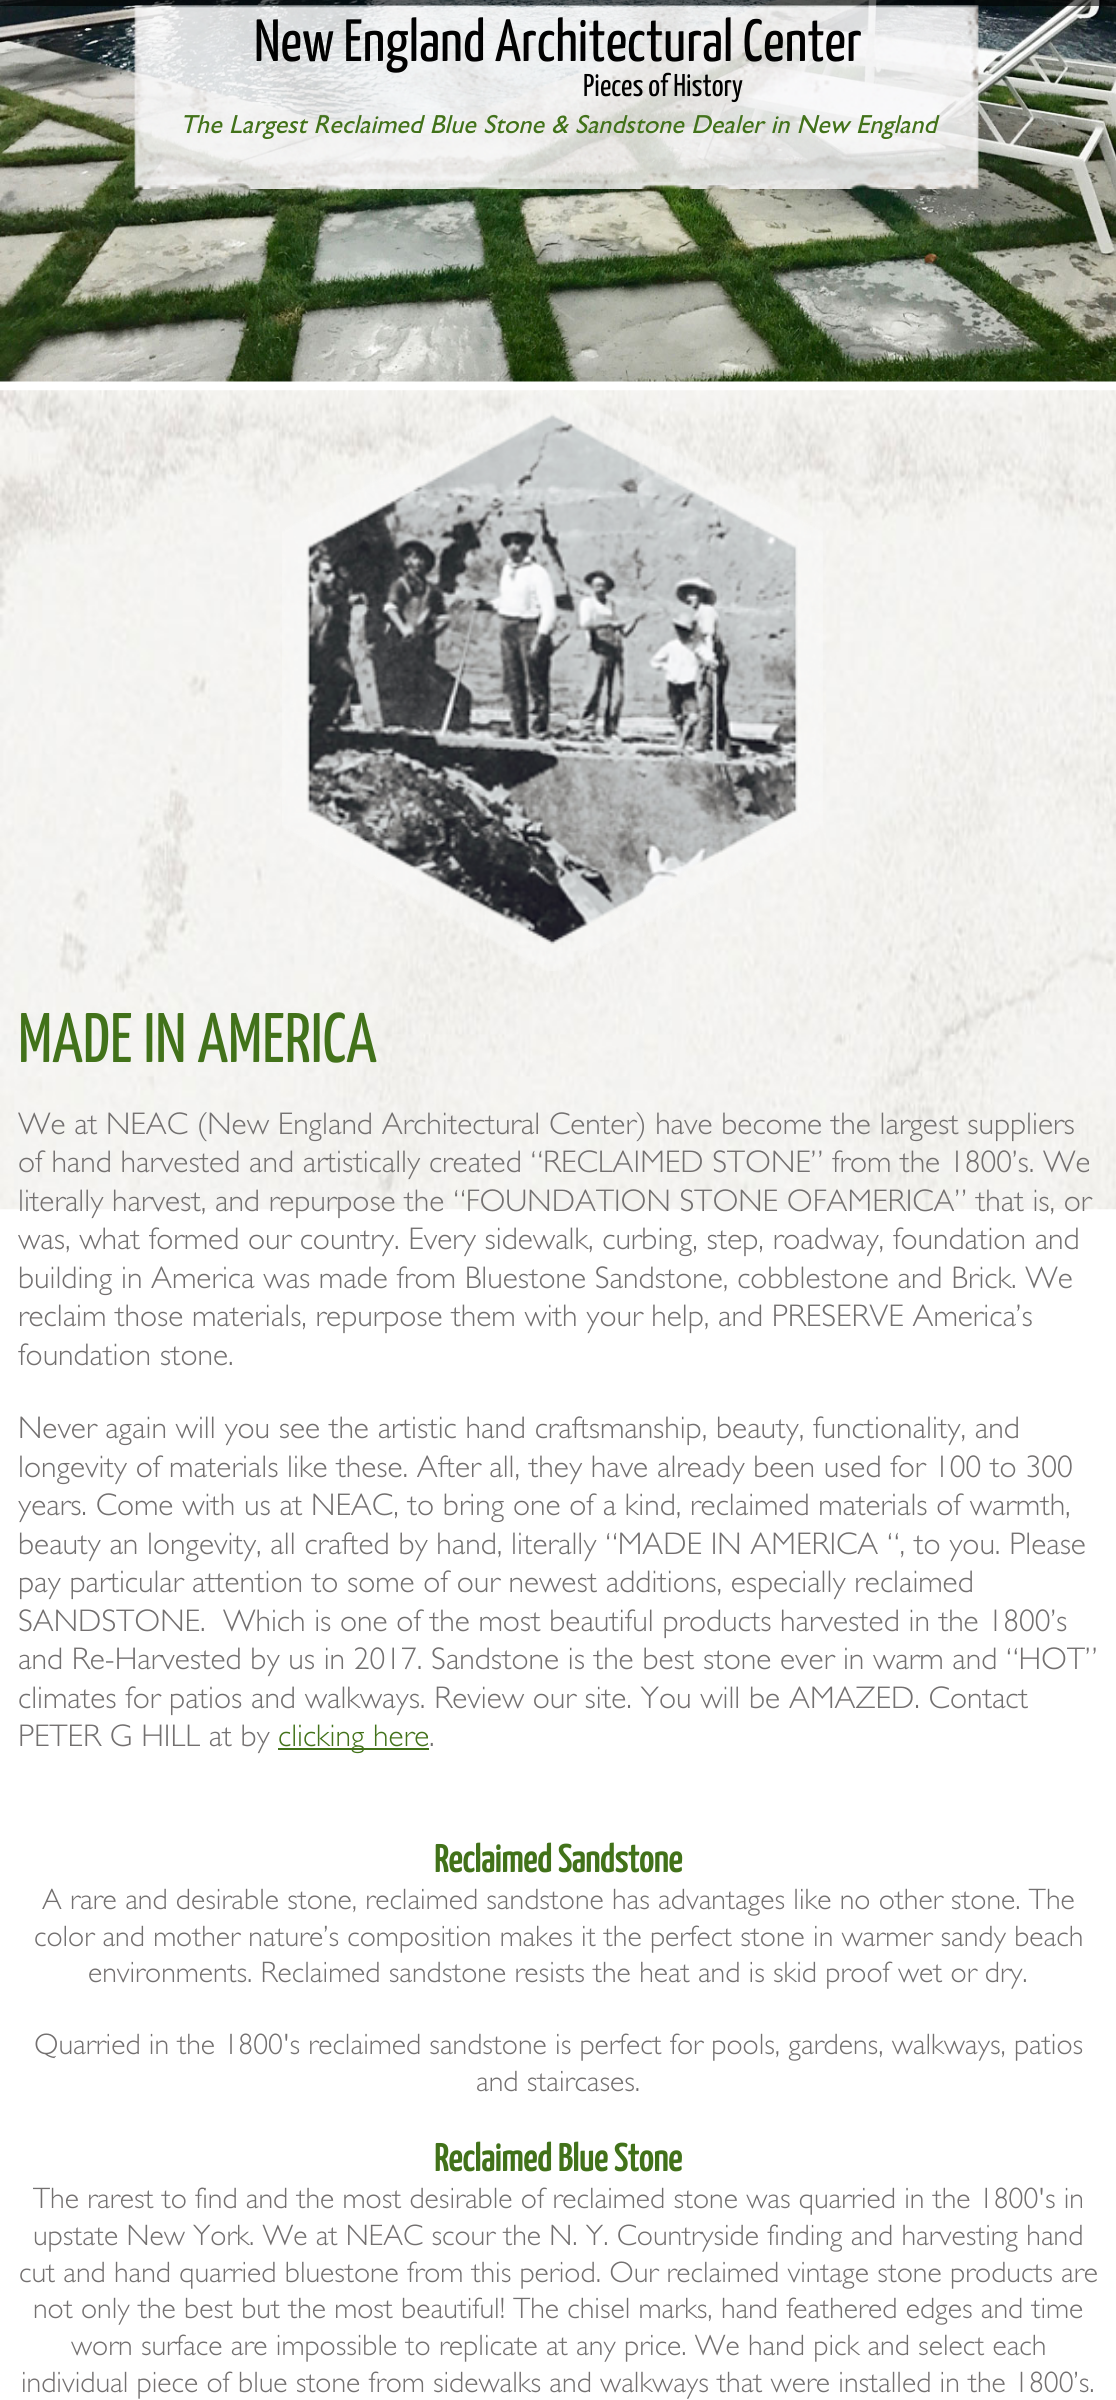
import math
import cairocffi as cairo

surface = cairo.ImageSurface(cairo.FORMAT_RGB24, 1116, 2400)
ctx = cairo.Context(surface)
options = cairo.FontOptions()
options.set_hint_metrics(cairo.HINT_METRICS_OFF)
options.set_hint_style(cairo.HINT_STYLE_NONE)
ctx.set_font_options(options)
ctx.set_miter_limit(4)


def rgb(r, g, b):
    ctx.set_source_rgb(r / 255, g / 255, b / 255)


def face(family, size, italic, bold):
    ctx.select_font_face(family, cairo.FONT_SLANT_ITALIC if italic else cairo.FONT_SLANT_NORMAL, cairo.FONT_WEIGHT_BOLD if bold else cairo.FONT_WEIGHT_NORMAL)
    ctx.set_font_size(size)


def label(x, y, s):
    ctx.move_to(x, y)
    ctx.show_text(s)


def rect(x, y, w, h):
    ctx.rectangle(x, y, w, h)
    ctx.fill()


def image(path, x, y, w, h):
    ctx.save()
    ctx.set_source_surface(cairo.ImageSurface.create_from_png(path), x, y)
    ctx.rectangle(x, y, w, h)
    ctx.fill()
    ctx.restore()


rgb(255, 255, 255)
ctx.paint()
image('image0.png', 0, 0, 1116, 382)
ctx.set_source_rgba(0, 0, 0, 0.59)
rect(0, 0, 1116, 6)
image('image1.png', 134, 5, 845, 184)
face('Yanone Kaffeesatz', 59.5, 0, 0)
rgb(1, 1, 1)
label(254, 61, 'New England Architectural Center')
face('Yanone Kaffeesatz', 31.5, 0, 0)
label(583, 96, 'Pieces of History')
face('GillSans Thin', 26.25, 1, 0)
rgb(66, 114, 26)
label(180, 133, 'The Largest Reclaimed Blue Stone & Sandstone Dealer in New England')
image('image2.png', 0, 390, 1116, 820)
image('image3.png', 282, 390, 541, 581)
face('Yanone Kaffeesatz', 70, 0, 0)
label(18, 1062, 'MADE IN AMERICA')
face('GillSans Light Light', 31.5, 0, 0)
rgb(115, 112, 112)
label(18, 1134, 'We at NEAC (New England Architectural Center) have become the largest suppliers')
label(18, 1172, 'of hand harvested and artistically created “RECLAIMED STONE” from the 1800’s. We')
label(18, 1211, 'literally harvest, and repurpose the “FOUNDATION STONE OFAMERICA” that is, or')
label(18, 1249, 'was, what formed our country. Every sidewalk, curbing, step, roadway, foundation and')
label(18, 1288, 'building in America was made from Bluestone Sandstone, cobblestone and Brick. We')
label(18, 1326, 'reclaim those materials, repurpose them with your help, and PRESERVE America’s')
label(18, 1365, 'foundation stone.')
label(18, 1438, 'Never again will you see the artistic hand craftsmanship, beauty, functionality, and')
label(18, 1477, 'longevity of materials like these. After all, they have already been used for 100 to 300')
label(18, 1515, 'years. Come with us at NEAC, to bring one of a kind, reclaimed materials of warmth,')
label(18, 1554, 'beauty an longevity, all crafted by hand, literally “MADE IN AMERICA “, to you. Please')
label(18, 1592, 'pay particular attention to some of our newest additions, especially reclaimed')
label(18, 1631, 'SANDSTONE.  Which is one of the most beautiful products harvested in the 1800’s')
label(18, 1669, 'and Re-Harvested by us in 2017. Sandstone is the best stone ever in warm and “HOT”')
label(18, 1708, 'climates for patios and walkways. Review our site. You will be AMAZED. Contact')
label(18, 1746, 'PETER G HILL at by')
rgb(66, 114, 26)
rect(278, 1748, 151, 2)
label(278, 1746, 'clicking here')
rgb(115, 112, 112)
label(429, 1746, '.')
face('Yanone Kaffeesatz', 38.5, 0, 1)
rgb(66, 114, 26)
label(434, 1872, 'Reclaimed Sandstone')
face('GillSans Light Light', 29.75, 0, 0)
rgb(115, 112, 112)
label(42, 1909, 'A rare and desirable stone, reclaimed sandstone has advantages like no other stone. The')
label(34, 1946, 'color and mother nature’s composition makes it the perfect stone in warmer sandy beach')
label(88, 1982, 'environments. Reclaimed sandstone resists the heat and is skid proof wet or dry.')
label(34, 2054, 'Quarried in the 1800\'s reclaimed sandstone is perfect for pools, gardens, walkways, patios')
label(476, 2091, 'and staircases.')
face('Yanone Kaffeesatz', 38.5, 0, 1)
rgb(66, 114, 26)
label(434, 2171, 'Reclaimed Blue Stone')
face('GillSans Light Light', 29.75, 0, 0)
rgb(115, 112, 112)
label(33, 2208, 'The rarest to find and the most desirable of reclaimed stone was quarried in the 1800\'s in')
label(33, 2245, 'upstate New York. We at NEAC scour the N. Y. Countryside finding and harvesting hand')
label(19, 2282, 'cut and hand quarried bluestone from this period. Our reclaimed vintage stone products are')
label(33, 2318, 'not only the best but the most beautiful! The chisel marks, hand feathered edges and time')
label(71, 2355, 'worn surface are impossible to replicate at any price. We hand pick and select each')
label(21, 2392, 'individual piece of blue stone from sidewalks and walkways that were installed in the 1800’s.')
surface.write_to_png('render.png')
